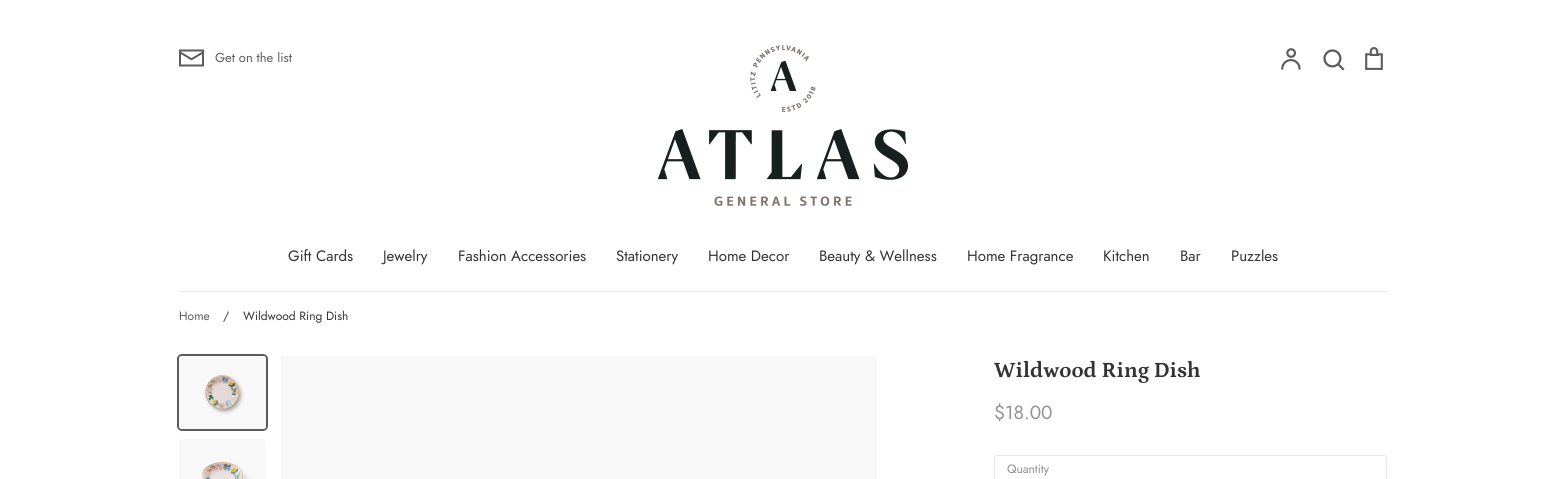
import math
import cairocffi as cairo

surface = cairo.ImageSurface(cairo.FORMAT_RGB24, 1566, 479)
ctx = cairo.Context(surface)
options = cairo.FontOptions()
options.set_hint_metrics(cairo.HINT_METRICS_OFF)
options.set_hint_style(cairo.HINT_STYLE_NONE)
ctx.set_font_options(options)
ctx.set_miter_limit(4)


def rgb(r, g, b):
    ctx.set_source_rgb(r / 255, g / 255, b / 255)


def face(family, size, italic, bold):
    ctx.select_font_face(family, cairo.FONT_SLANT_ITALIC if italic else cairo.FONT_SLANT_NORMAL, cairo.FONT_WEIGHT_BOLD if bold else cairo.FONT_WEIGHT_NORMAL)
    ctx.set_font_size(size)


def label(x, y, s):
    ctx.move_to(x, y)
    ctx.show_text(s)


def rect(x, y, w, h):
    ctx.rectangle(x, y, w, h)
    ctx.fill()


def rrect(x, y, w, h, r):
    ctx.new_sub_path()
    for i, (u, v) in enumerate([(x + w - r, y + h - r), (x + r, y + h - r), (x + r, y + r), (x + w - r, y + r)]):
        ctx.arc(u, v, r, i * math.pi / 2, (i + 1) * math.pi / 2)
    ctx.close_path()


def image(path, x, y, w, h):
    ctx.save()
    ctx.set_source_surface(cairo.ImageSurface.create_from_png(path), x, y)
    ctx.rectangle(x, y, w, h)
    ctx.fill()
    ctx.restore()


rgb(255, 255, 255)
ctx.paint()
image('image0.png', 179, 49, 25, 18)
face('Jost', 13, 0, 0)
rgb(92, 92, 92)
label(215, 62, 'Get on the list')
image('image1.png', 658, 45, 250, 161)
image('image2.png', 1281, 48, 20, 22)
image('image3.png', 1323, 49, 22, 22)
image('image4.png', 1365, 47, 18, 23)
rgb(231, 231, 231)
rect(179, 291, 1208, 1)
face('Jost', 15, 0, 0)
rgb(51, 51, 51)
label(288, 261, 'Gift Cards')
label(383, 261, 'Jewelry')
label(458, 261, 'Fashion Accessories')
label(616, 261, 'Stationery')
label(708, 261, 'Home Decor')
label(819, 261, 'Beauty & Wellness')
label(967, 261, 'Home Fragrance')
label(1103, 261, 'Kitchen')
label(1180, 261, 'Bar')
label(1231, 261, 'Puzzles')
face('Jost', 12, 0, 0)
rgb(92, 92, 92)
label(179, 320, 'Home')
rgb(51, 51, 51)
label(223, 320, '/')
label(243, 320, 'Wildwood Ring Dish')
rrect(178, 355, 89, 75, 4)
rgb(92, 92, 92)
ctx.stroke()
image('image5.png', 179, 356, 87, 73)
image('image6.png', 179, 439, 87, 40)
rgb(248, 248, 248)
rect(281, 356, 596, 123)
face('Petrona', 22, 0, 1)
rgb(51, 51, 51)
label(994, 377, 'Wildwood Ring Dish')
face('Jost', 19, 0, 0)
rgb(147, 147, 147)
label(994, 419, '$18.00')
rrect(994.5, 455.5, 392, 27, 2.5)
rgb(231, 231, 231)
ctx.set_line_width(1)
ctx.stroke()
face('Jost', 12, 0, 0)
rgb(141, 141, 141)
label(1007, 473, 'Quantity')
surface.write_to_png('render.png')
